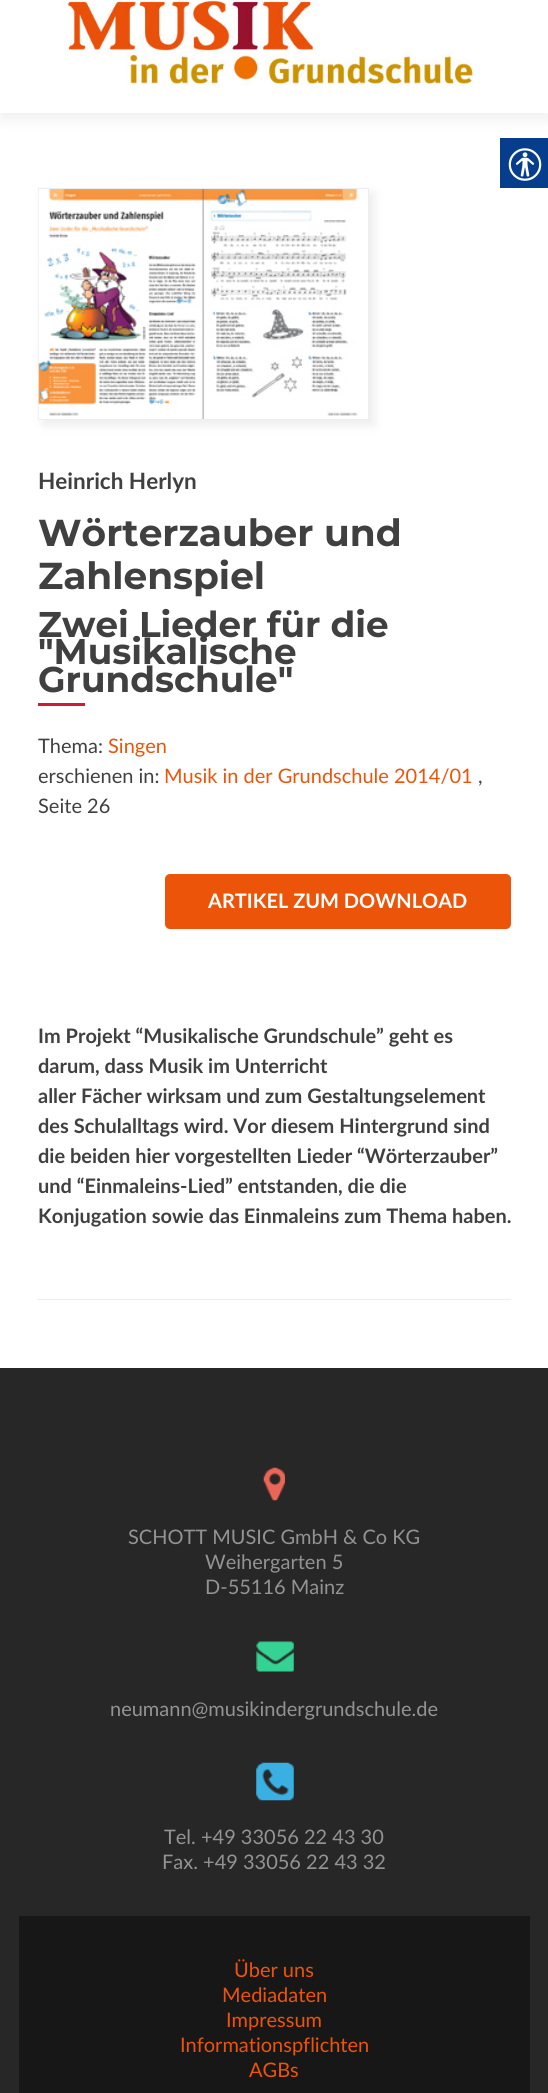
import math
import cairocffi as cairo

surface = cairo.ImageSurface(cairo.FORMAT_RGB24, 548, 2093)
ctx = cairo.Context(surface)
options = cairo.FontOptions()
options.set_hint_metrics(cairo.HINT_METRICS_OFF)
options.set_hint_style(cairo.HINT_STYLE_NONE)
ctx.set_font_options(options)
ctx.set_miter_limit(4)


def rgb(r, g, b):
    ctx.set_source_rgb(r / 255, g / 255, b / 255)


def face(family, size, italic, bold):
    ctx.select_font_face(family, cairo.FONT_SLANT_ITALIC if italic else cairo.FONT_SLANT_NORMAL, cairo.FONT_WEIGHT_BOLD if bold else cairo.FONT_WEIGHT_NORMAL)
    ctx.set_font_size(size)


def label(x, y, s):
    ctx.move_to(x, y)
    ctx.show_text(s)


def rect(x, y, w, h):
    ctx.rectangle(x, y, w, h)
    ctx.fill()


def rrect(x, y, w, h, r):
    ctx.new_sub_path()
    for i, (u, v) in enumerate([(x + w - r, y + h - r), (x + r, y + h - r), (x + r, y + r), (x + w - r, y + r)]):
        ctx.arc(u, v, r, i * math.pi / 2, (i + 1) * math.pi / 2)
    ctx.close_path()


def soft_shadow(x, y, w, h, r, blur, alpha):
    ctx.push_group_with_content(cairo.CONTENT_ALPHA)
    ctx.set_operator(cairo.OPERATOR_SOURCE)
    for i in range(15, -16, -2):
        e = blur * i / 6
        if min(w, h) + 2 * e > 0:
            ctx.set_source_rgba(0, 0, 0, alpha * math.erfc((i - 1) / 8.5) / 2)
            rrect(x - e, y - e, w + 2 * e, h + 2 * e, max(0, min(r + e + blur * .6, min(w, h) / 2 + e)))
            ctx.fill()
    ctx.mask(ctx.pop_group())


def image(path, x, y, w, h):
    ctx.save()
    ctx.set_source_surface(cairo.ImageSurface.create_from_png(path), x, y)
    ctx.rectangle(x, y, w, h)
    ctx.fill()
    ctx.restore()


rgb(255, 255, 255)
ctx.paint()
rgb(50, 50, 50)
soft_shadow(0, -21, 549, 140, 0, 7, 0.08)
rgb(6, 61, 141)
rect(500, 138, 48, 50)
image('image0.png', 508, 148, 34, 33)
rgb(255, 255, 255)
rect(0, 0, 548, 113)
image('image1.png', 63, 0, 410, 85)
rgb(237, 237, 237)
rect(38, 1299, 473, 1)
ctx.save()
ctx.set_fill_rule(cairo.FILL_RULE_EVEN_ODD)
ctx.new_path()
ctx.move_to(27, 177)
ctx.line_to(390, 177)
ctx.line_to(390, 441)
ctx.line_to(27, 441)
ctx.close_path()
ctx.move_to(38, 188)
ctx.line_to(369, 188)
ctx.line_to(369, 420)
ctx.line_to(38, 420)
ctx.close_path()
ctx.clip()
rgb(200, 200, 200)
soft_shadow(43, 193, 331, 232, 0, 5, 0.33)
ctx.restore()
ctx.rectangle(38.5, 188.5, 330, 231)
ctx.set_source_rgba(0.784, 0.784, 0.784, 0.33)
ctx.set_line_width(1)
ctx.stroke()
image('image2.png', 38, 189, 320, 230)
face('Lato', 22.5, 0, 1)
rgb(64, 64, 64)
label(38, 489, 'Heinrich Herlyn')
face('Montserrat', 37.5, 0, 1)
label(38, 546, 'Wörterzauber und')
label(38, 589, 'Zahlenspiel')
face('Montserrat', 35.75, 0, 1)
label(38, 637, 'Zwei Lieder für die')
label(38, 664, '"Musikalische')
label(38, 692, 'Grundschule"')
rgb(215, 22, 53)
rect(38, 703, 47, 3)
ctx.save()
ctx.rectangle(38, 465, 473, 556)
ctx.clip()
face('Lato', 20, 0, 0)
rgb(64, 64, 64)
label(38, 753, 'Thema:')
ctx.restore()
face('Lato', 20, 0, 0)
rgb(236, 84, 9)
label(108, 753, 'Singen')
rgb(64, 64, 64)
label(38, 783, 'erschienen in:')
rgb(236, 84, 9)
label(164, 783, 'Musik in der Grundschule 2014/01')
rgb(64, 64, 64)
label(478, 783, ',')
label(38, 813, 'Seite 26')
rgb(236, 84, 9)
rrect(165, 874, 346, 55, 5)
ctx.fill()
face('Lato', 20, 0, 1)
rgb(255, 255, 255)
label(208, 908, 'ARTIKEL ZUM DOWNLOAD')
rgb(64, 64, 64)
label(38, 1043, 'Im Projekt “Musikalische Grundschule” geht es')
label(38, 1073, 'darum, dass Musik im Unterricht')
label(38, 1103, 'aller Fächer wirksam und zum Gestaltungselement')
label(38, 1133, 'des Schulalltags wird. Vor diesem Hintergrund sind')
label(38, 1163, 'die beiden hier vorgestellten Lieder “Wörterzauber”')
label(38, 1193, 'und “Einmaleins-Lied” entstanden, die die')
label(38, 1223, 'Konjugation sowie das Einmaleins zum Thema haben.')
rgb(39, 39, 39)
rect(0, 1368, 548, 725)
image('image3.png', 263, 1467, 22, 34)
face('Lato', 20, 0, 0)
rgb(147, 147, 147)
label(128, 1544, 'SCHOTT MUSIC GmbH & Co KG')
label(205, 1569, 'Weihergarten 5')
label(205, 1594, 'D-55116 Mainz')
image('image4.png', 256, 1641, 38, 31)
label(110, 1716, 'neumann@musikindergrundschule.de')
image('image5.png', 256, 1762, 38, 39)
label(164, 1844, 'Tel. +49 33056 22 43 30')
label(162, 1869, 'Fax. +49 33056 22 43 32')
rgb(23, 23, 23)
rect(19, 1916, 511, 177)
rgb(236, 84, 9)
label(234, 1977, 'Über uns')
label(222, 2002, 'Mediadaten')
label(226, 2027, 'Impressum')
label(180, 2052, 'Informationspflichten')
label(249, 2077, 'AGBs')
surface.write_to_png('render.png')
